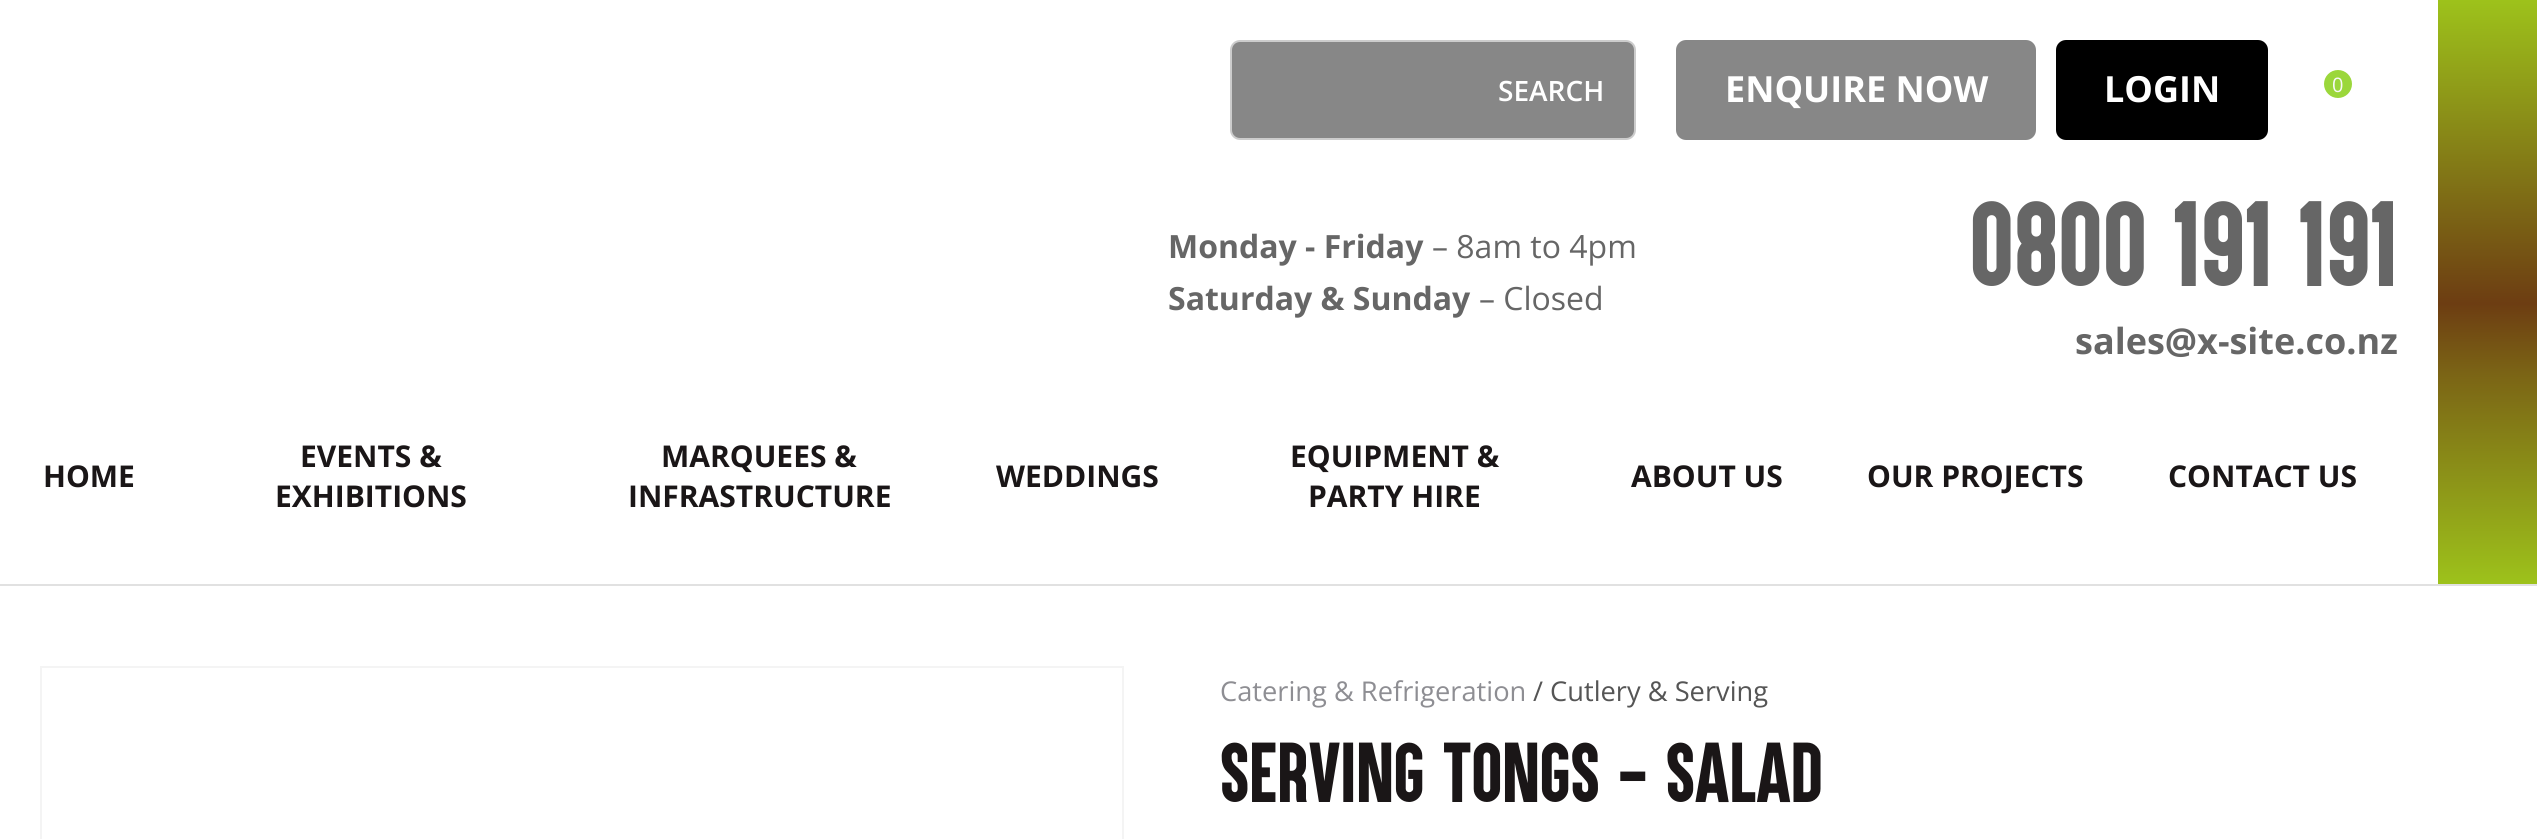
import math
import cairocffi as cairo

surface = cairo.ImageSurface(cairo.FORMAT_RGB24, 2537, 839)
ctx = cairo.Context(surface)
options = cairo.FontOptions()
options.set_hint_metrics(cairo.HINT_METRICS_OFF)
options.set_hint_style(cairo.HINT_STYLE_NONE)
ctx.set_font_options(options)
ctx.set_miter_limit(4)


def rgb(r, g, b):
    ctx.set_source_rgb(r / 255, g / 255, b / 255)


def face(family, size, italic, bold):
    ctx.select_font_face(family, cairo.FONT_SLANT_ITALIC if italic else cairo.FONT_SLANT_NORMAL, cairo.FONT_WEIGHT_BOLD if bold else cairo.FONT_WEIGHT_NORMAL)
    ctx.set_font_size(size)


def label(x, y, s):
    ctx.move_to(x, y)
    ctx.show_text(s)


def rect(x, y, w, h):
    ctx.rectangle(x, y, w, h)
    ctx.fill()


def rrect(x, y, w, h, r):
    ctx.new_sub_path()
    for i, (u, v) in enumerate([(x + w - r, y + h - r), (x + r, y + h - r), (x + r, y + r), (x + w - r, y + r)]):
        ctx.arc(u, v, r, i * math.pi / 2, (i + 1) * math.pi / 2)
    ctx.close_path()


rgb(255, 255, 255)
ctx.paint()
rgb(135, 135, 135)
rrect(1231, 41, 404, 98, 9)
ctx.fill_preserve()
rgb(204, 204, 204)
ctx.stroke()
face('Open Sans SemiBold', 28, 0, 0)
rgb(255, 255, 255)
label(1498, 101, 'SEARCH')
rgb(135, 135, 135)
rrect(1676, 40, 360, 100, 10)
ctx.fill()
face('Open Sans', 36, 0, 1)
rgb(255, 255, 255)
label(1725, 102, 'ENQUIRE NOW')
rgb(0, 0, 0)
rrect(2056, 40, 212, 100, 10)
ctx.fill()
rgb(255, 255, 255)
label(2104, 102, 'LOGIN')
rgb(155, 215, 59)
ctx.new_path()
ctx.arc(2338, 84, 14, 0, 2 * math.pi)
ctx.fill()
face('Open Sans', 20, 0, 0)
rgb(248, 248, 248)
label(2332, 92, '0')
face('Open Sans', 32, 0, 1)
rgb(102, 102, 102)
label(1168, 258, 'Monday - Friday')
face('Open Sans', 32, 0, 0)
label(1432, 258, '– 8am to 4pm')
face('Open Sans', 32, 0, 1)
label(1168, 310, 'Saturday & Sunday')
face('Open Sans', 32, 0, 0)
label(1479, 310, '– Closed')
face('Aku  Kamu', 100, 1, 0)
label(1969, 286, '0800 191 191')
face('Open Sans', 36, 0, 1)
label(2075, 354, 'sales@x-site.co.nz')
face('Open Sans', 30, 0, 1)
rgb(26, 22, 23)
label(43, 487, 'HOME')
label(300, 467, 'EVENTS &')
label(275, 507, 'EXHIBITIONS')
label(661, 467, 'MARQUEES &')
label(628, 507, 'INFRASTRUCTURE')
label(996, 487, 'WEDDINGS')
label(1290, 467, 'EQUIPMENT &')
label(1308, 507, 'PARTY HIRE')
label(1631, 487, 'ABOUT US')
label(1867, 487, 'OUR PROJECTS')
label(2168, 487, 'CONTACT US')
gradient = cairo.LinearGradient(2488, 0, 2488, 584)
gradient.add_color_stop_rgba(0, 0.616, 0.761, 0.106, 1)
gradient.add_color_stop_rgba(0.52, 0.427, 0.239, 0.071, 1)
gradient.add_color_stop_rgba(0.64, 0.482, 0.392, 0.082, 1)
gradient.add_color_stop_rgba(1, 0.616, 0.761, 0.106, 1)
ctx.set_source(gradient)
rect(2438, 0, 99, 584)
rgb(225, 225, 225)
rect(0, 584, 2537, 2)
ctx.rectangle(41, 667, 1082, 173)
rgb(244, 244, 244)
ctx.stroke()
face('Open Sans', 27.25, 0, 0)
rgb(142, 142, 147)
label(1220, 701, 'Catering & Refrigeration')
rgb(85, 85, 85)
label(1533, 701, '/ Cutlery & Serving')
face('Aku  Kamu', 70, 1, 0)
rgb(26, 22, 23)
label(1220, 802, 'Serving Tongs - Salad')
surface.write_to_png('render.png')
